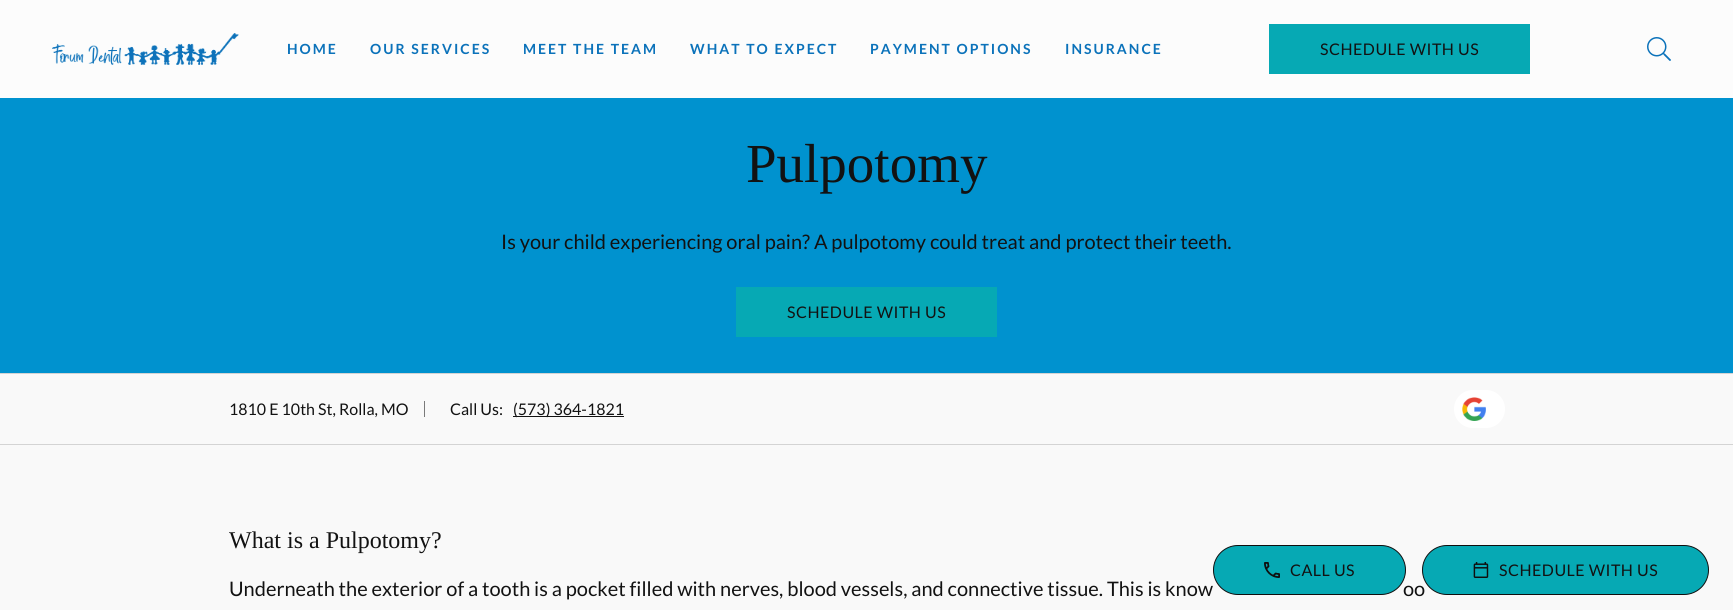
import math
import cairocffi as cairo

surface = cairo.ImageSurface(cairo.FORMAT_RGB24, 1733, 610)
ctx = cairo.Context(surface)
options = cairo.FontOptions()
options.set_hint_metrics(cairo.HINT_METRICS_OFF)
options.set_hint_style(cairo.HINT_STYLE_NONE)
ctx.set_font_options(options)
ctx.set_miter_limit(4)


def rgb(r, g, b):
    ctx.set_source_rgb(r / 255, g / 255, b / 255)


def face(family, size, italic, bold):
    ctx.select_font_face(family, cairo.FONT_SLANT_ITALIC if italic else cairo.FONT_SLANT_NORMAL, cairo.FONT_WEIGHT_BOLD if bold else cairo.FONT_WEIGHT_NORMAL)
    ctx.set_font_size(size)


def label(x, y, s):
    ctx.move_to(x, y)
    ctx.show_text(s)


def tracked(x, y, s, letter, word):
    ctx.move_to(x, y)
    for ch in s:
        ctx.show_text(ch)
        ctx.rel_move_to(letter + word * (ch == ' '), 0)


def rect(x, y, w, h):
    ctx.rectangle(x, y, w, h)
    ctx.fill()


def rrect(x, y, w, h, r):
    ctx.new_sub_path()
    for i, (u, v) in enumerate([(x + w - r, y + h - r), (x + r, y + h - r), (x + r, y + r), (x + w - r, y + r)]):
        ctx.arc(u, v, r, i * math.pi / 2, (i + 1) * math.pi / 2)
    ctx.close_path()


def image(path, x, y, w, h):
    ctx.save()
    ctx.set_source_surface(cairo.ImageSurface.create_from_png(path), x, y)
    ctx.rectangle(x, y, w, h)
    ctx.fill()
    ctx.restore()


rgb(249, 249, 249)
ctx.paint()
rgb(252, 252, 252)
rect(0, 0, 1733, 98)
image('image0.png', 52, 33, 187, 32)
face('Lato', 14, 0, 1)
rgb(11, 114, 186)
tracked(287, 54, 'HOME', 2, 0)
tracked(370, 54, 'OUR SERVICES', 2, 0)
tracked(523, 54, 'MEET THE TEAM', 2, 0)
tracked(690, 54, 'WHAT TO EXPECT', 2, 0)
tracked(870, 54, 'PAYMENT OPTIONS', 2, 0)
tracked(1065, 54, 'INSURANCE', 2, 0)
rgb(6, 169, 180)
rect(1269, 24, 261, 50)
face('Lato', 16, 0, 0)
rgb(18, 18, 18)
tracked(1320, 55, 'SCHEDULE WITH US', 0.5, 0)
image('image1.png', 1647, 37, 24, 24)
rgb(0, 146, 207)
rect(0, 98, 1733, 275)
face('Liberation Serif', 55, 0, 0)
rgb(18, 18, 18)
label(746, 182, 'Pulpotomy')
face('Lato', 20, 0, 0)
label(501, 249, 'Is your child experiencing oral pain? A pulpotomy could treat and protect their teeth.')
rgb(6, 169, 180)
rect(736, 287, 261, 50)
face('Lato', 16, 0, 0)
rgb(18, 18, 18)
tracked(787, 318, 'SCHEDULE WITH US', 0.5, 0)
rgb(212, 212, 212)
rect(0, 373, 1733, 1)
rect(0, 444, 1733, 1)
rgb(18, 18, 18)
label(229, 415, '1810 E 10th St, Rolla, MO')
rgb(122, 122, 122)
rect(424, 401, 1, 16)
rgb(18, 18, 18)
label(450, 415, 'Call Us:')
rect(513, 416, 111, 1)
label(513, 415, '(573) 364-1821')
rgb(255, 255, 255)
rrect(1454, 390, 51, 38, 19)
ctx.fill()
image('image2.png', 1462, 397, 24, 24)
face('Liberation Serif', 24, 0, 0)
rgb(18, 18, 18)
label(229, 548, 'What is a Pulpotomy?')
face('Lato', 20, 0, 0)
label(229, 596, 'Underneath the exterior of a tooth is a pocket filled with nerves, blood vessels, and connective tissue. This is know')
label(1403, 596, 'oo')
rgb(6, 169, 180)
rrect(1213.5, 545.5, 192, 49, 24.5)
ctx.fill_preserve()
rgb(15, 15, 15)
ctx.set_line_width(1)
ctx.stroke()
image('image3.png', 1264, 562, 16, 16)
face('Lato', 16, 0, 0)
rgb(18, 18, 18)
tracked(1290, 576, 'CALL US', 0.5, 0)
rgb(6, 169, 180)
rrect(1422.5, 545.5, 286, 49, 24.5)
ctx.fill_preserve()
rgb(15, 15, 15)
ctx.stroke()
image('image4.png', 1473, 562, 16, 16)
rgb(18, 18, 18)
tracked(1499, 576, 'SCHEDULE WITH US', 0.5, 0)
surface.write_to_png('render.png')
